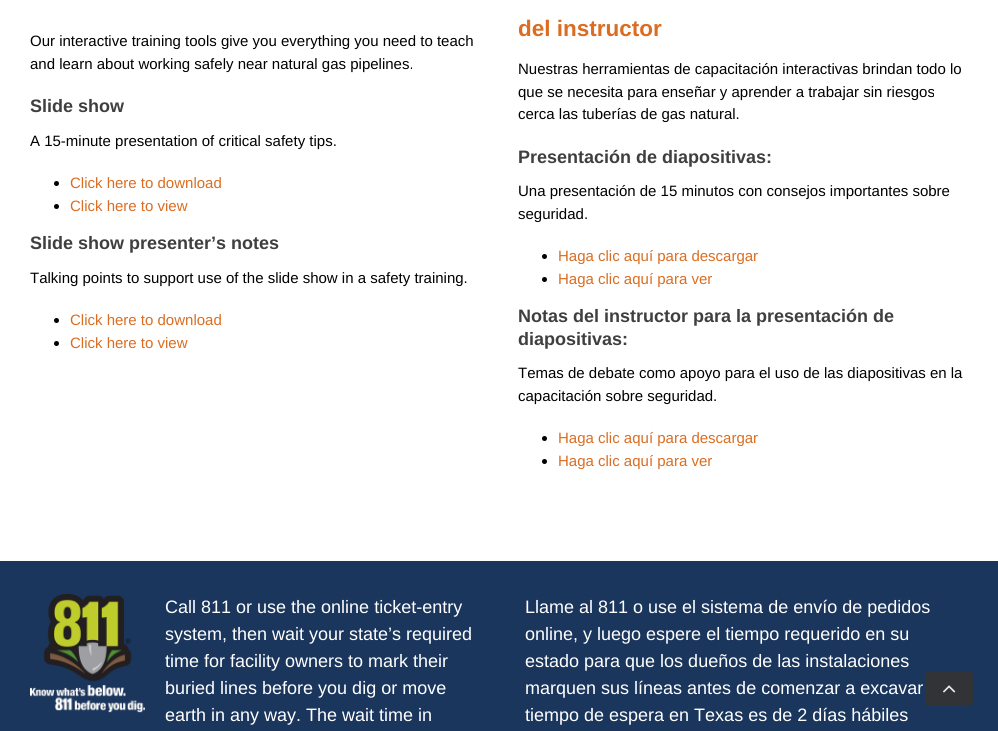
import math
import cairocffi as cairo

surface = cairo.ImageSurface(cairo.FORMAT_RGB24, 998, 731)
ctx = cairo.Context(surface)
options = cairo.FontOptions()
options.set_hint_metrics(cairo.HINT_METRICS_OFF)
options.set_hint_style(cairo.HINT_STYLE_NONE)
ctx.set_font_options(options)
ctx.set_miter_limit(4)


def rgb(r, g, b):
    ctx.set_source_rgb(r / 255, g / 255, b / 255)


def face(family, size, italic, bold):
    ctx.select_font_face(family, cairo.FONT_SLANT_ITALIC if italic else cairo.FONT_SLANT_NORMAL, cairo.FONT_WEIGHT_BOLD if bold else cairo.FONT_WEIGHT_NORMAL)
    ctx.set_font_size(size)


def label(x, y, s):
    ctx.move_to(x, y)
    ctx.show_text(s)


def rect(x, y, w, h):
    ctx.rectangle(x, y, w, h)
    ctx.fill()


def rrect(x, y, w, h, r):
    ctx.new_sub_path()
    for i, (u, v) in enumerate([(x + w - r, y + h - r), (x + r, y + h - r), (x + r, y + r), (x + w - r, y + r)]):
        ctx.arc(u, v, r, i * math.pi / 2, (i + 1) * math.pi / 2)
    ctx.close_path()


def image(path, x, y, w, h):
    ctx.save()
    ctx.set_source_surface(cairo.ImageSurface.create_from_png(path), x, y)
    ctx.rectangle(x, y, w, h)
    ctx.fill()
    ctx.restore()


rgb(255, 255, 255)
ctx.paint()
face('Liberation Sans', 15, 0, 0)
rgb(0, 0, 0)
label(30, 46, 'Our interactive training tools give you everything you need to teach')
label(30, 69, 'and learn about working safely near natural gas pipelines.')
face('Liberation Sans', 18, 0, 1)
rgb(63, 63, 63)
label(30, 112, 'Slide show')
face('Liberation Sans', 15, 0, 0)
rgb(0, 0, 0)
label(30, 146, 'A 15-minute presentation of critical safety tips.')
ctx.new_path()
ctx.arc(56.5, 183.5, 2.5, 0, 2 * math.pi)
ctx.fill()
rgb(218, 109, 34)
label(70, 188, 'Click here to download')
rgb(0, 0, 0)
ctx.new_path()
ctx.arc(56.5, 206.5, 2.5, 0, 2 * math.pi)
ctx.fill()
rgb(218, 109, 34)
label(70, 211, 'Click here to view')
face('Liberation Sans', 18, 0, 1)
rgb(63, 63, 63)
label(30, 249, 'Slide show presenter’s notes')
face('Liberation Sans', 15, 0, 0)
rgb(0, 0, 0)
label(30, 283, 'Talking points to support use of the slide show in a safety training.')
ctx.new_path()
ctx.arc(56.5, 320.5, 2.5, 0, 2 * math.pi)
ctx.fill()
rgb(218, 109, 34)
label(70, 325, 'Click here to download')
rgb(0, 0, 0)
ctx.new_path()
ctx.arc(56.5, 343.5, 2.5, 0, 2 * math.pi)
ctx.fill()
rgb(218, 109, 34)
label(70, 348, 'Click here to view')
face('Liberation Sans', 22.5, 0, 1)
label(518, 36, 'del instructor')
face('Liberation Sans', 15, 0, 0)
rgb(0, 0, 0)
label(518, 74, 'Nuestras herramientas de capacitación interactivas brindan todo lo')
label(518, 97, 'que se necesita para enseñar y aprender a trabajar sin riesgos')
label(518, 119, 'cerca las tuberías de gas natural.')
face('Liberation Sans', 18, 0, 1)
rgb(63, 63, 63)
label(518, 163, 'Presentación de diapositivas:')
face('Liberation Sans', 15, 0, 0)
rgb(0, 0, 0)
label(518, 196, 'Una presentación de 15 minutos con consejos importantes sobre')
label(518, 219, 'seguridad.')
ctx.new_path()
ctx.arc(544.5, 256.5, 2.5, 0, 2 * math.pi)
ctx.fill()
rgb(218, 109, 34)
label(558, 261, 'Haga clic aquí para descargar')
rgb(0, 0, 0)
ctx.new_path()
ctx.arc(544.5, 279.5, 2.5, 0, 2 * math.pi)
ctx.fill()
rgb(218, 109, 34)
label(558, 284, 'Haga clic aquí para ver')
face('Liberation Sans', 18, 0, 1)
rgb(63, 63, 63)
label(518, 322, 'Notas del instructor para la presentación de')
label(518, 345, 'diapositivas:')
face('Liberation Sans', 15, 0, 0)
rgb(0, 0, 0)
label(518, 378, 'Temas de debate como apoyo para el uso de las diapositivas en la')
label(518, 401, 'capacitación sobre seguridad.')
ctx.new_path()
ctx.arc(544.5, 438.5, 2.5, 0, 2 * math.pi)
ctx.fill()
rgb(218, 109, 34)
label(558, 443, 'Haga clic aquí para descargar')
rgb(0, 0, 0)
ctx.new_path()
ctx.arc(544.5, 461.5, 2.5, 0, 2 * math.pi)
ctx.fill()
rgb(218, 109, 34)
label(558, 466, 'Haga clic aquí para ver')
rgb(27, 54, 93)
rect(0, 561, 998, 170)
image('image0.png', 30, 594, 115, 119)
face('Liberation Sans', 18, 0, 0)
rgb(255, 255, 255)
label(165, 613, 'Call 811 or use the online ticket-entry')
label(165, 640, 'system, then wait your state’s required')
label(165, 667, 'time for facility owners to mark their')
label(165, 694, 'buried lines before you dig or move')
label(165, 721, 'earth in any way. The wait time in')
label(525, 613, 'Llame al 811 o use el sistema de envío de pedidos')
label(525, 640, 'online, y luego espere el tiempo requerido en su')
label(525, 667, 'estado para que los dueños de las instalaciones')
label(525, 694, 'marquen sus líneas antes de comenzar a excavar')
label(525, 721, 'tiempo de espera en Texas es de 2 días hábiles')
ctx.set_source_rgba(0.2, 0.2, 0.2, 0.9)
rrect(925, 671, 48, 35, 4)
ctx.fill()
image('image1.png', 943, 685, 13, 8)
surface.write_to_png('render.png')
